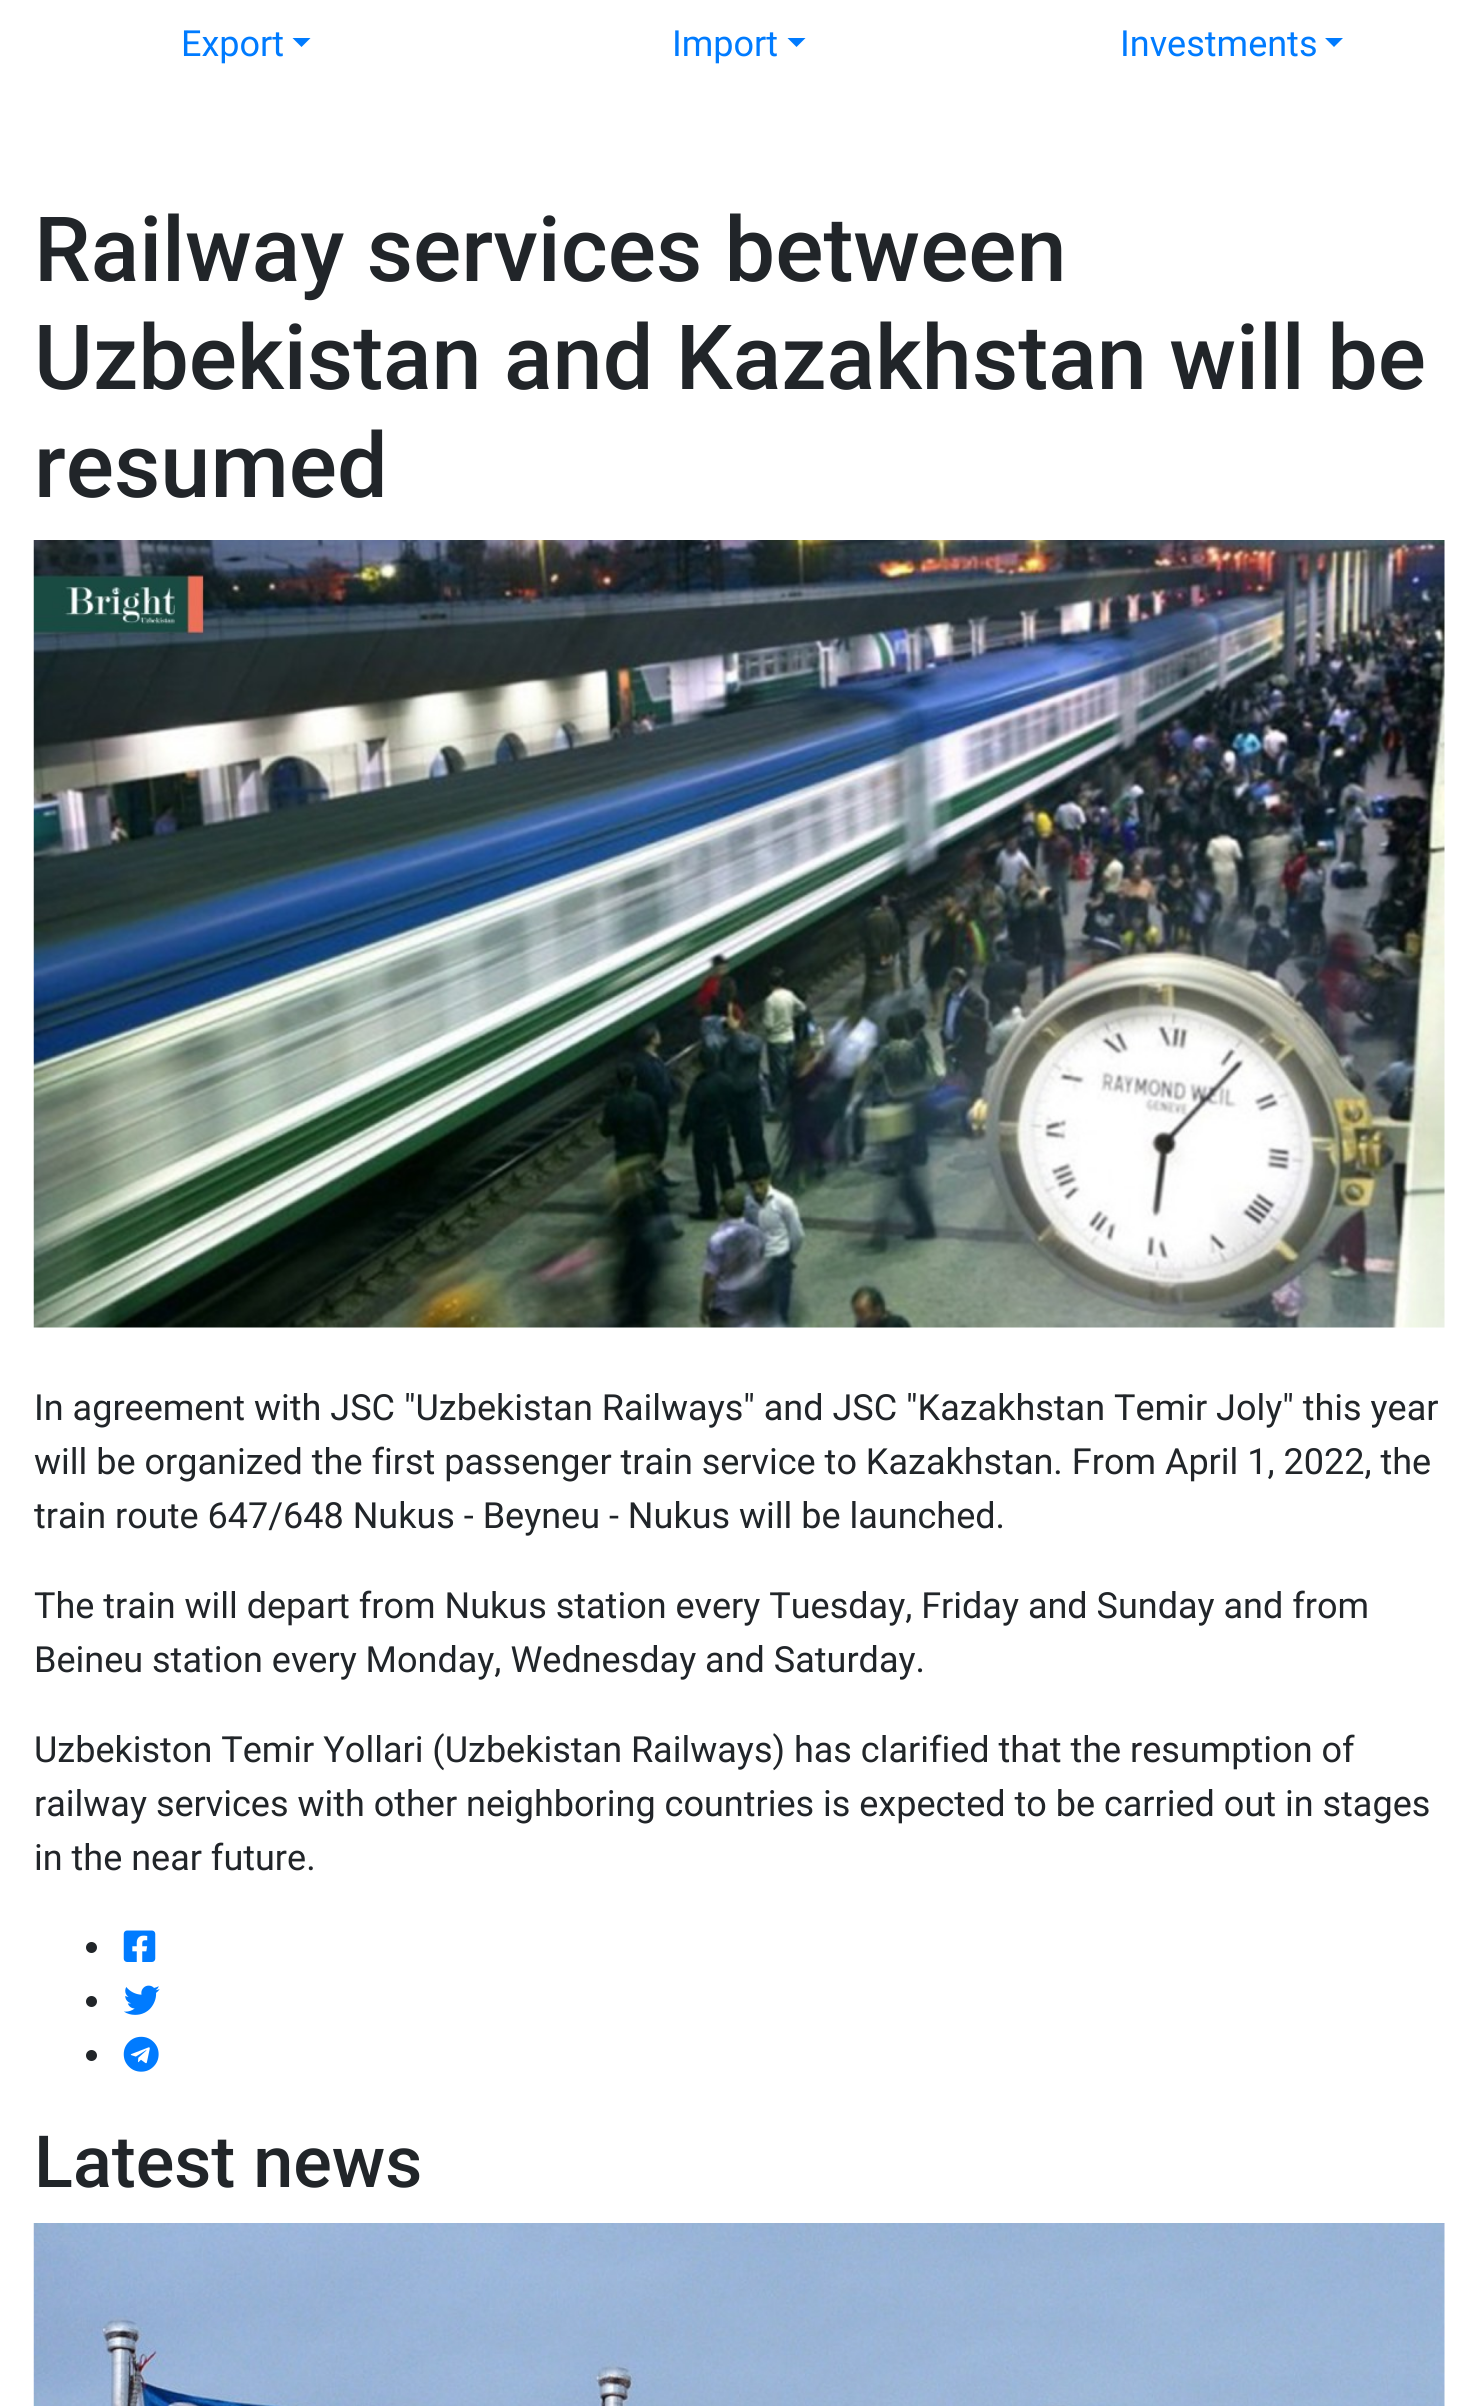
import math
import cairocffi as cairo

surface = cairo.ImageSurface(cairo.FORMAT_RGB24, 1477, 2406)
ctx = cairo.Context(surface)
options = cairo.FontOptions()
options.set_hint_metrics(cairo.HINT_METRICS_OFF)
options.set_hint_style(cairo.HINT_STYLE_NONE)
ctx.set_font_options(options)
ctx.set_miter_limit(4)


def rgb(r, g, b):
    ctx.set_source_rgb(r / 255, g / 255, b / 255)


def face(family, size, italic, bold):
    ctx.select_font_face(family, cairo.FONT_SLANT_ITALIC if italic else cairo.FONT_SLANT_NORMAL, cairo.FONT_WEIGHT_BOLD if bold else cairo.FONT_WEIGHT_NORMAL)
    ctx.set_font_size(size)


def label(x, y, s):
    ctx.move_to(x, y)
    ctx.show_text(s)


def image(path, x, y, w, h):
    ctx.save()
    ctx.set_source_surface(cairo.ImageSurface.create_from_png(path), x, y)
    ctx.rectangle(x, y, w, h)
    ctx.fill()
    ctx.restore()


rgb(255, 255, 255)
ctx.paint()
face('Roboto', 36, 0, 0)
rgb(0, 123, 255)
label(181, 56, 'Export')
ctx.new_path()
ctx.move_to(292.5, 38)
ctx.line_to(310.5, 38)
ctx.line_to(301.5, 47)
ctx.close_path()
ctx.fill()
label(672, 56, 'Import')
ctx.new_path()
ctx.move_to(787.5, 38)
ctx.line_to(805.5, 38)
ctx.line_to(796.5, 47)
ctx.close_path()
ctx.fill()
label(1120, 56, 'Investments')
ctx.new_path()
ctx.move_to(1325, 38)
ctx.line_to(1343, 38)
ctx.line_to(1334, 47)
ctx.close_path()
ctx.fill()
face('Roboto Medium', 90, 0, 0)
rgb(33, 37, 41)
label(34, 281, 'Railway services between')
label(34, 389, 'Uzbekistan and Kazakhstan will be')
label(34, 497, 'resumed')
image('image0.png', 33, 540, 1412, 788)
face('Roboto', 36, 0, 0)
label(34, 1420, 'In agreement with JSC "Uzbekistan Railways" and JSC "Kazakhstan Temir Joly" this year')
label(34, 1474, 'will be organized the first passenger train service to Kazakhstan. From April 1, 2022, the')
label(34, 1528, 'train route 647/648 Nukus - Beyneu - Nukus will be launched.')
label(34, 1618, 'The train will depart from Nukus station every Tuesday, Friday and Sunday and from')
label(34, 1672, 'Beineu station every Monday, Wednesday and Saturday.')
label(34, 1762, 'Uzbekiston Temir Yollari (Uzbekistan Railways) has clarified that the resumption of')
label(34, 1816, 'railway services with other neighboring countries is expected to be carried out in stages')
label(34, 1870, 'in the near future.')
ctx.new_path()
ctx.arc(91.5, 1947.5, 5.5, 0, 2 * math.pi)
ctx.fill()
image('image1.png', 123, 1930, 33, 32)
ctx.arc(91.5, 2001.5, 5.5, 0, 2 * math.pi)
ctx.fill()
image('image2.png', 124, 1985, 36, 30)
ctx.arc(91.5, 2055.5, 5.5, 0, 2 * math.pi)
ctx.fill()
image('image3.png', 123, 2036, 36, 36)
face('Roboto Medium', 72, 0, 0)
label(34, 2187, 'Latest news')
image('image4.png', 33, 2223, 1412, 183)
surface.write_to_png('render.png')
